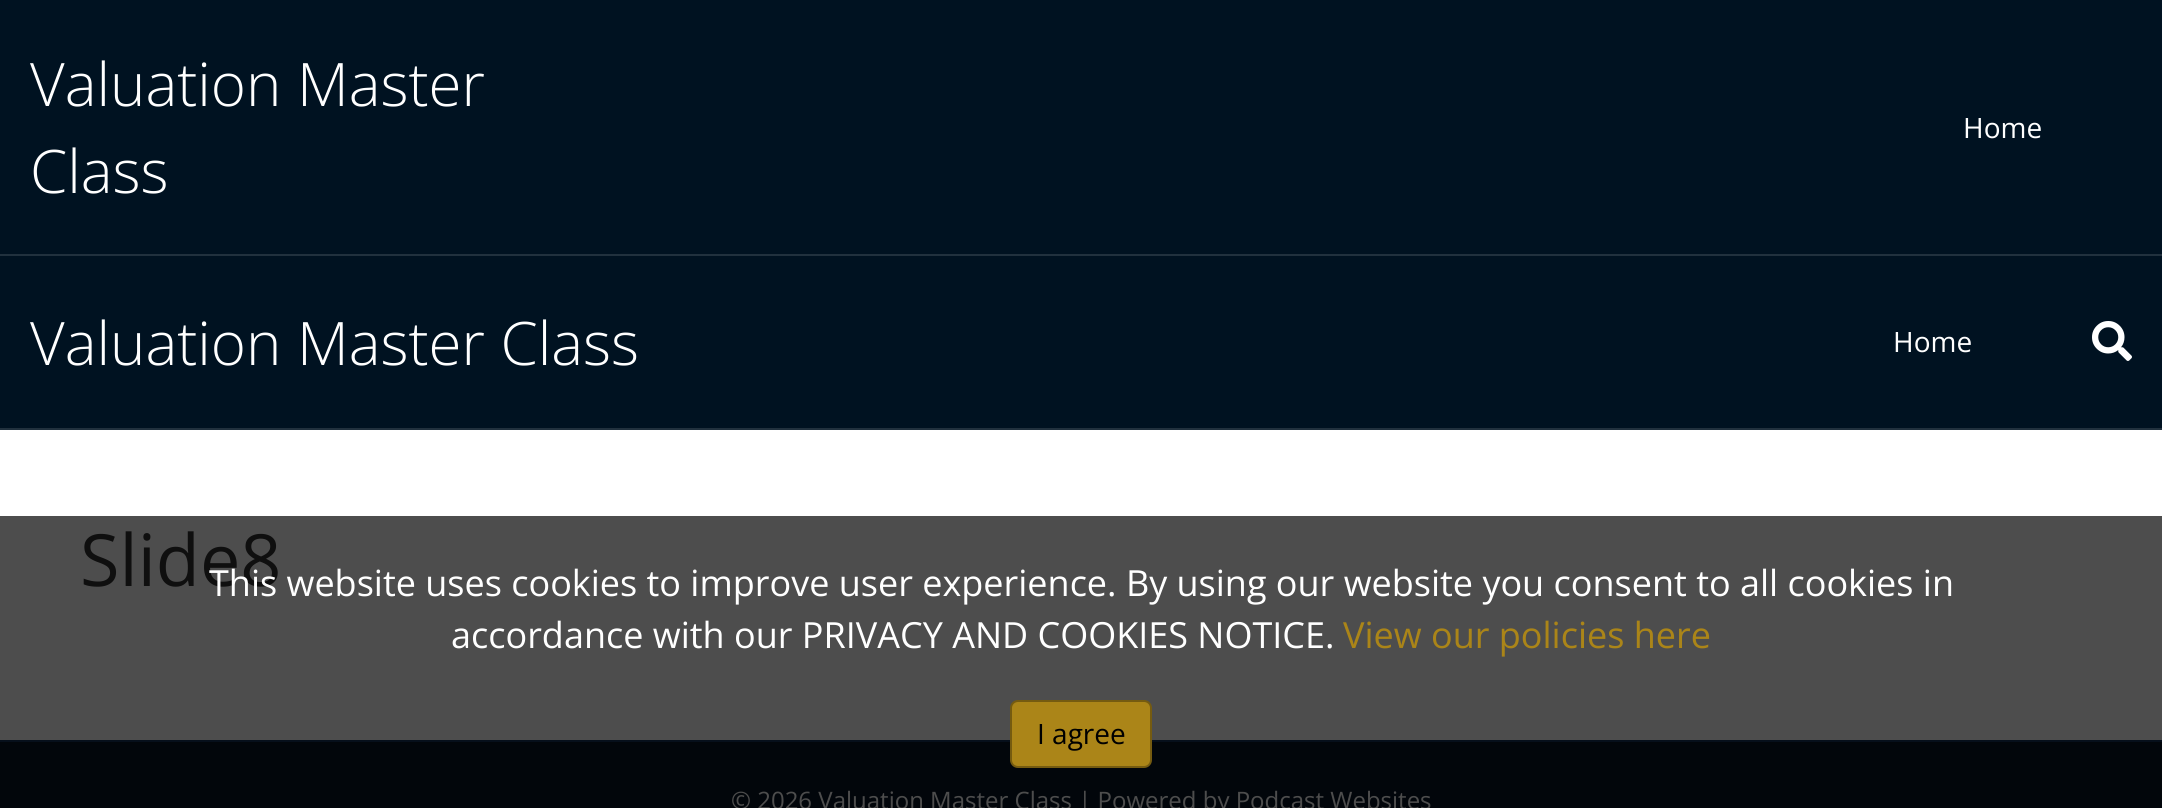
import math
import cairocffi as cairo

surface = cairo.ImageSurface(cairo.FORMAT_RGB24, 2162, 808)
ctx = cairo.Context(surface)
options = cairo.FontOptions()
options.set_hint_metrics(cairo.HINT_METRICS_OFF)
options.set_hint_style(cairo.HINT_STYLE_NONE)
ctx.set_font_options(options)
ctx.set_miter_limit(4)


def rgb(r, g, b):
    ctx.set_source_rgb(r / 255, g / 255, b / 255)


def face(family, size, italic, bold):
    ctx.select_font_face(family, cairo.FONT_SLANT_ITALIC if italic else cairo.FONT_SLANT_NORMAL, cairo.FONT_WEIGHT_BOLD if bold else cairo.FONT_WEIGHT_NORMAL)
    ctx.set_font_size(size)


def label(x, y, s):
    ctx.move_to(x, y)
    ctx.show_text(s)


def rect(x, y, w, h):
    ctx.rectangle(x, y, w, h)
    ctx.fill()


def rrect(x, y, w, h, r):
    ctx.new_sub_path()
    for i, (u, v) in enumerate([(x + w - r, y + h - r), (x + r, y + h - r), (x + r, y + r), (x + w - r, y + r)]):
        ctx.arc(u, v, r, i * math.pi / 2, (i + 1) * math.pi / 2)
    ctx.close_path()


def image(path, x, y, w, h):
    ctx.save()
    ctx.set_source_surface(cairo.ImageSurface.create_from_png(path), x, y)
    ctx.rectangle(x, y, w, h)
    ctx.fill()
    ctx.restore()


rgb(0, 18, 33)
ctx.paint()
rgb(33, 49, 62)
rect(0, 254, 2162, 2)
face('Open Sans Light', 60, 0, 0)
rgb(255, 255, 255)
label(30, 106, 'Valuation Master')
label(30, 193, 'Class')
face('Open Sans', 28, 0, 0)
label(1963, 138, 'Home')
rgb(33, 49, 62)
rect(0, 428, 2162, 2)
face('Open Sans Light', 60, 0, 0)
rgb(255, 255, 255)
label(30, 365, 'Valuation Master Class')
face('Open Sans', 28, 0, 0)
label(1893, 352, 'Home')
image('image0.png', 2092, 321, 40, 40)
rect(0, 430, 2162, 86)
rgb(77, 77, 77)
rect(0, 516, 2162, 224)
face('Open Sans', 72, 0, 0)
rgb(15, 15, 15)
label(80, 586, 'Slide8')
rgb(2, 6, 11)
rect(0, 742, 2162, 66)
rgb(6, 15, 27)
rect(0, 740, 2162, 2)
face('Open Sans', 24, 0, 0)
rgb(77, 77, 77)
label(731, 809, '© 2026 Valuation Master Class | Powered by Podcast Websites')
face('Open Sans', 36, 0, 0)
rgb(255, 255, 255)
label(209, 596, 'This website uses cookies to improve user experience. By using our website you consent to all cookies in')
label(451, 648, 'accordance with our PRIVACY AND COOKIES NOTICE.')
rgb(171, 133, 24)
label(1343, 648, 'View our policies here')
rrect(1011, 701, 140, 66, 7)
ctx.fill_preserve()
rgb(117, 91, 16)
ctx.stroke()
face('Open Sans', 28, 0, 0)
rgb(0, 0, 0)
label(1037, 744, 'I agree')
surface.write_to_png('render.png')
